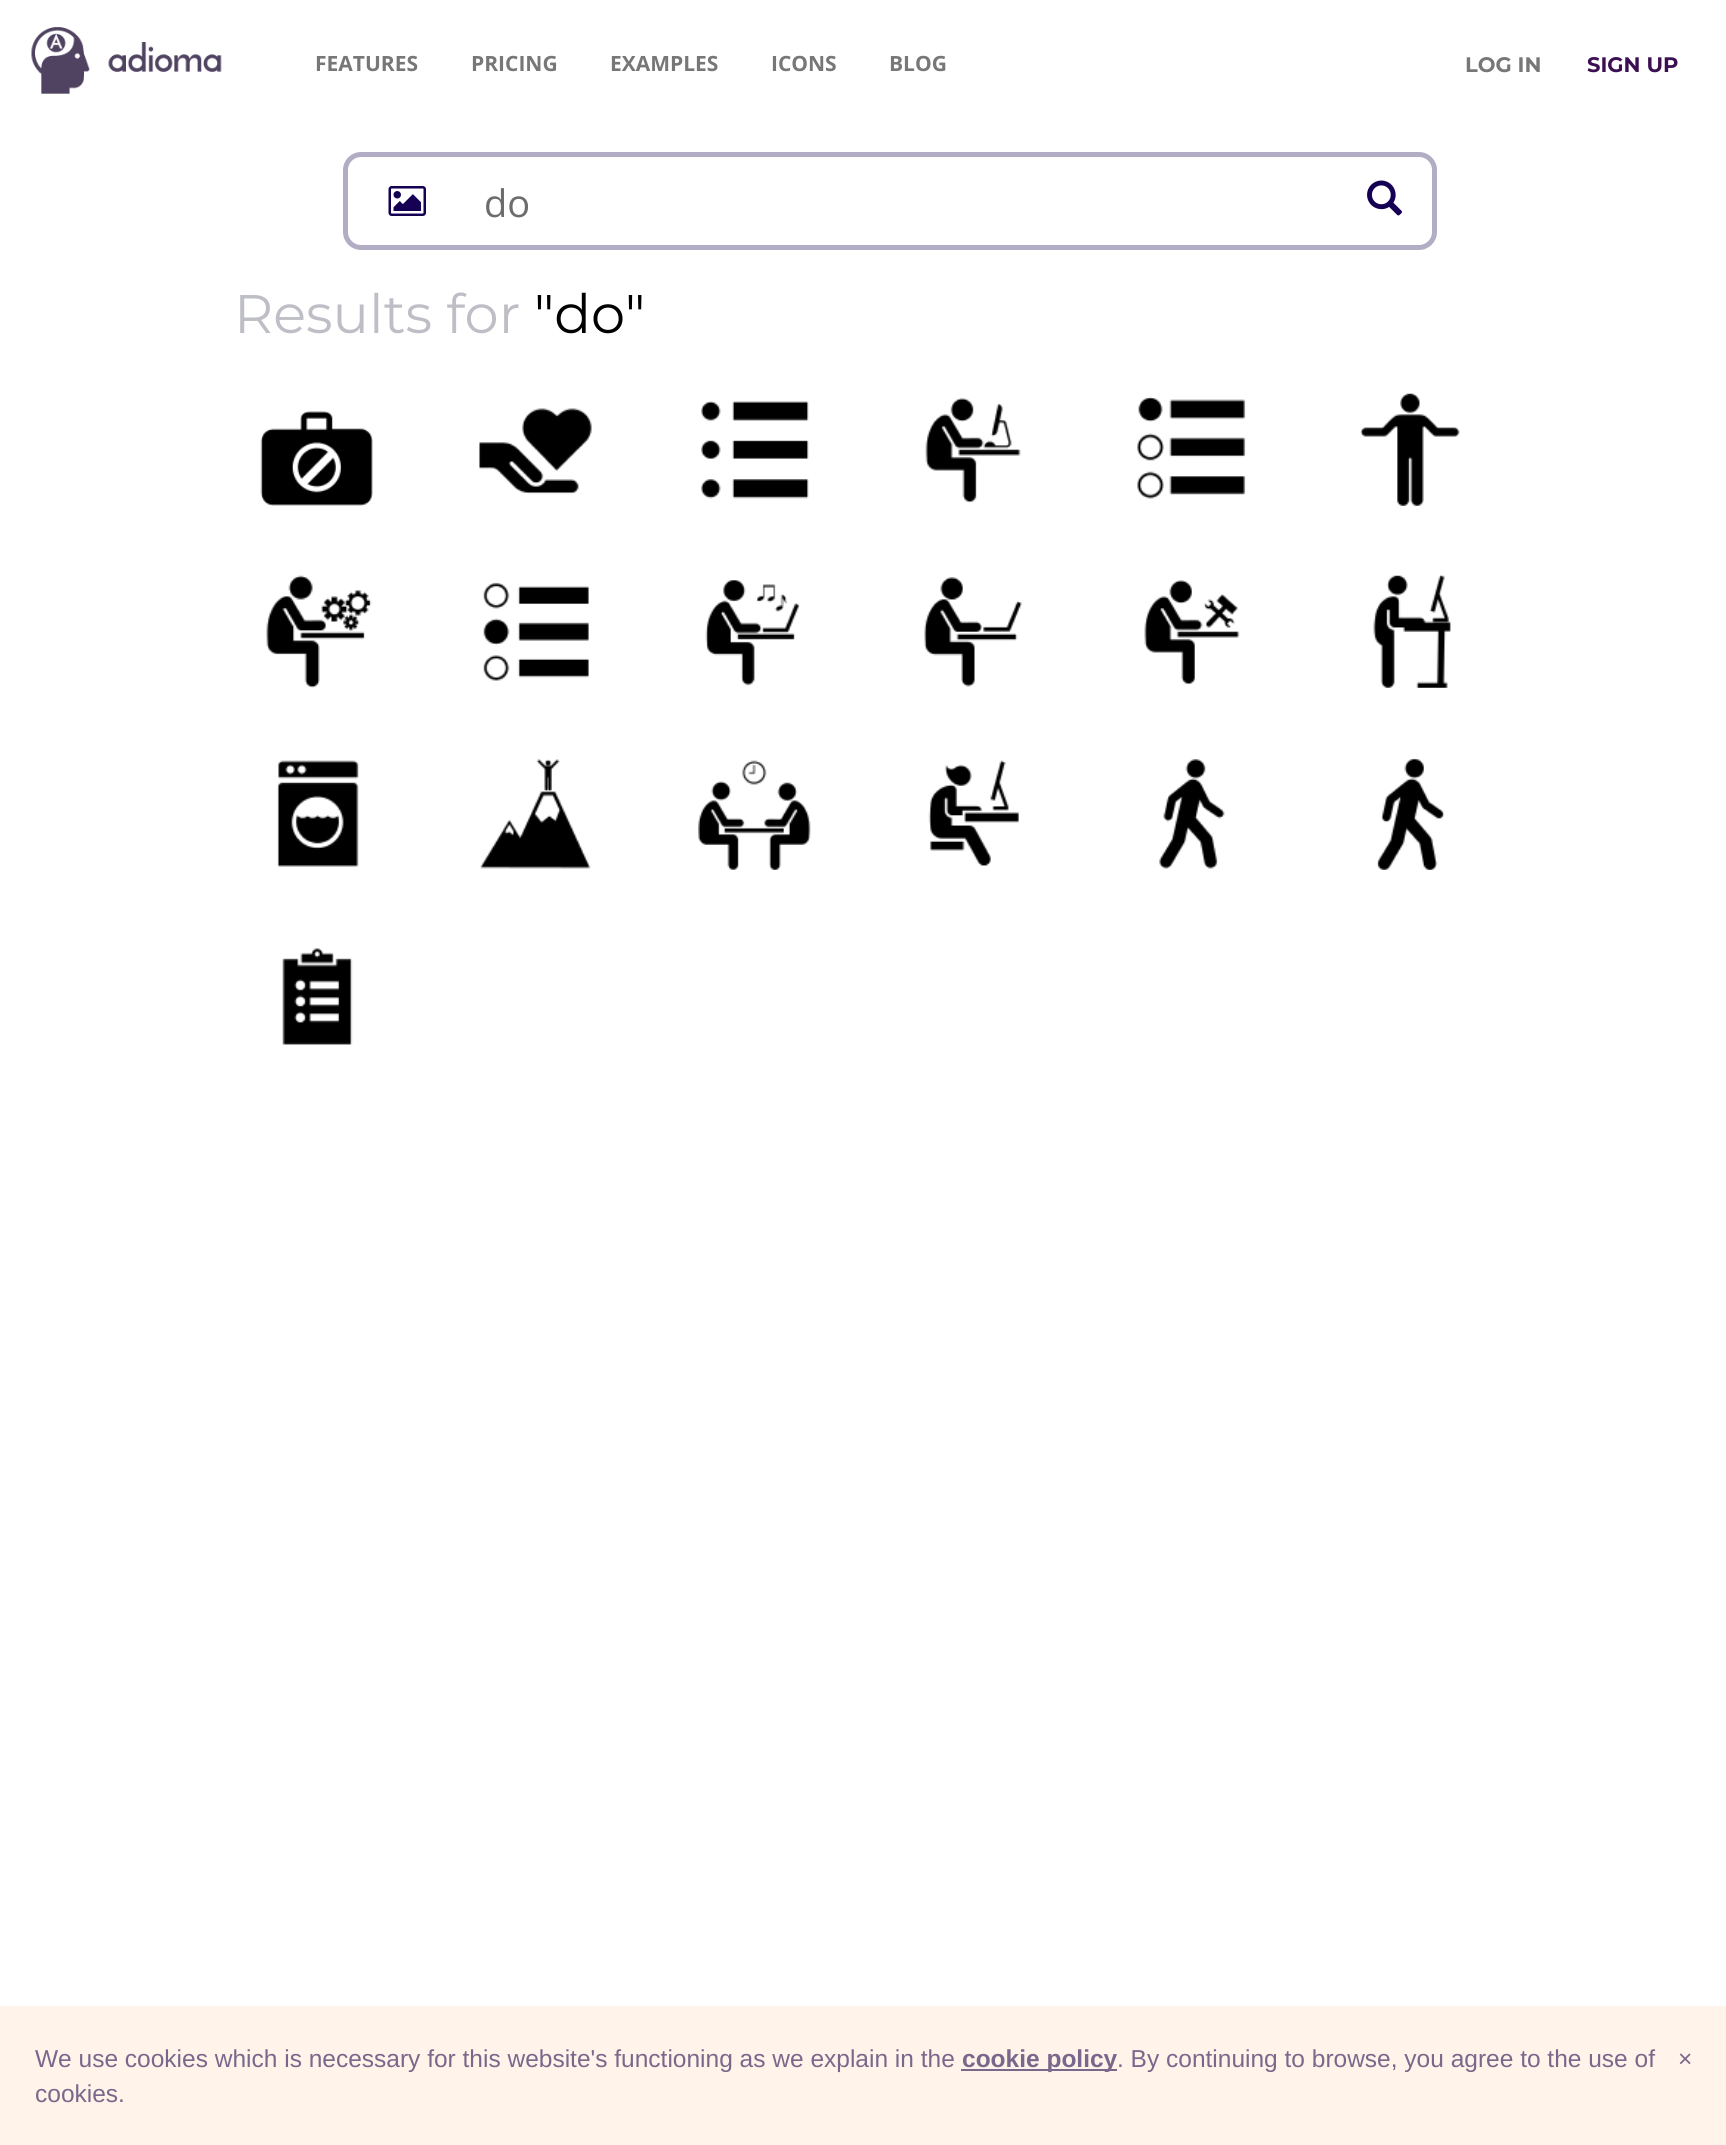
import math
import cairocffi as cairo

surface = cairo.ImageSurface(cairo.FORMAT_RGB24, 1726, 2145)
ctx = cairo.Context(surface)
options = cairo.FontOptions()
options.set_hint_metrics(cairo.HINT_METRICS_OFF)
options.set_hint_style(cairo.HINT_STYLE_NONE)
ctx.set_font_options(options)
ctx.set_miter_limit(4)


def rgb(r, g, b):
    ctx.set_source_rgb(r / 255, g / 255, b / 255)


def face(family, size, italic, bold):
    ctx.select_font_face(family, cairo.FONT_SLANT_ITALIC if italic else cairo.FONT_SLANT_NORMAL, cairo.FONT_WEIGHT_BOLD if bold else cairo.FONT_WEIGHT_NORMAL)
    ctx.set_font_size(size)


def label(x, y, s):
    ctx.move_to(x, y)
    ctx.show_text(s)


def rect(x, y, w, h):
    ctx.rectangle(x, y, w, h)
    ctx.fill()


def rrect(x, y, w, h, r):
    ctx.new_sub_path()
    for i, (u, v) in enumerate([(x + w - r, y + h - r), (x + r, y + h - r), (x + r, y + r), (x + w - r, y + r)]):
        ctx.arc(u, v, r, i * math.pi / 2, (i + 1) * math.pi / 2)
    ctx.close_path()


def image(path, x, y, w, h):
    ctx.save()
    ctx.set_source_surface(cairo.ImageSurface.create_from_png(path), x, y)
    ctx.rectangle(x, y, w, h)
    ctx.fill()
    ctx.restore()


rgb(255, 255, 255)
ctx.paint()
image('image0.png', 31, 27, 191, 67)
face('Open Sans', 21, 0, 1)
rgb(119, 119, 119)
label(315, 71, 'FEATURES')
label(471, 71, 'PRICING')
label(610, 71, 'EXAMPLES')
label(771, 71, 'ICONS')
label(889, 71, 'BLOG')
face('Montserrat', 21, 0, 1)
label(1465, 72, 'LOG IN')
rgb(59, 15, 81)
label(1587, 72, 'SIGN UP')
rrect(345.5, 154.5, 1089, 93, 15.5)
rgb(178, 173, 196)
ctx.set_line_width(5)
ctx.stroke()
image('image1.png', 388, 186, 38, 30)
face('Open Sans', 38, 0, 0)
rgb(108, 108, 108)
label(484, 217, 'do')
image('image2.png', 1367, 180, 35, 36)
face('Montserrat', 54.25, 0, 0)
rgb(190, 190, 198)
label(234, 333, 'Results for')
rgb(0, 0, 0)
label(534, 333, '"do"')
image('image3.png', 260, 411, 113, 95)
image('image4.png', 479, 408, 113, 86)
image('image5.png', 701, 401, 108, 98)
image('image6.png', 925, 398, 96, 105)
image('image7.png', 1137, 396, 109, 103)
image('image8.png', 1360, 393, 100, 113)
image('image9.png', 266, 575, 106, 113)
image('image10.png', 483, 582, 106, 99)
image('image11.png', 705, 580, 95, 106)
image('image12.png', 924, 577, 98, 110)
image('image13.png', 1144, 580, 96, 105)
image('image14.png', 1373, 575, 78, 113)
image('image15.png', 277, 760, 82, 107)
image('image16.png', 480, 759, 111, 110)
image('image17.png', 698, 760, 113, 110)
image('image18.png', 928, 760, 91, 106)
image('image19.png', 1159, 759, 66, 110)
image('image20.png', 1377, 758, 68, 112)
image('image21.png', 282, 948, 71, 97)
rgb(255, 243, 234)
rect(0, 2006, 1726, 139)
face('Liberation Sans', 24.5, 0, 0)
rgb(121, 104, 139)
label(35, 2067, 'We use cookies which is necessary for this website\'s functioning as we explain in the')
rect(961, 2069, 156, 2)
face('Liberation Sans', 24.5, 0, 1)
label(962, 2067, 'cookie policy')
face('Liberation Sans', 24.5, 0, 0)
label(1117, 2067, '. By continuing to browse, you agree to the use of')
label(35, 2102, 'cookies.')
label(1678, 2067, '×')
surface.write_to_png('render.png')
